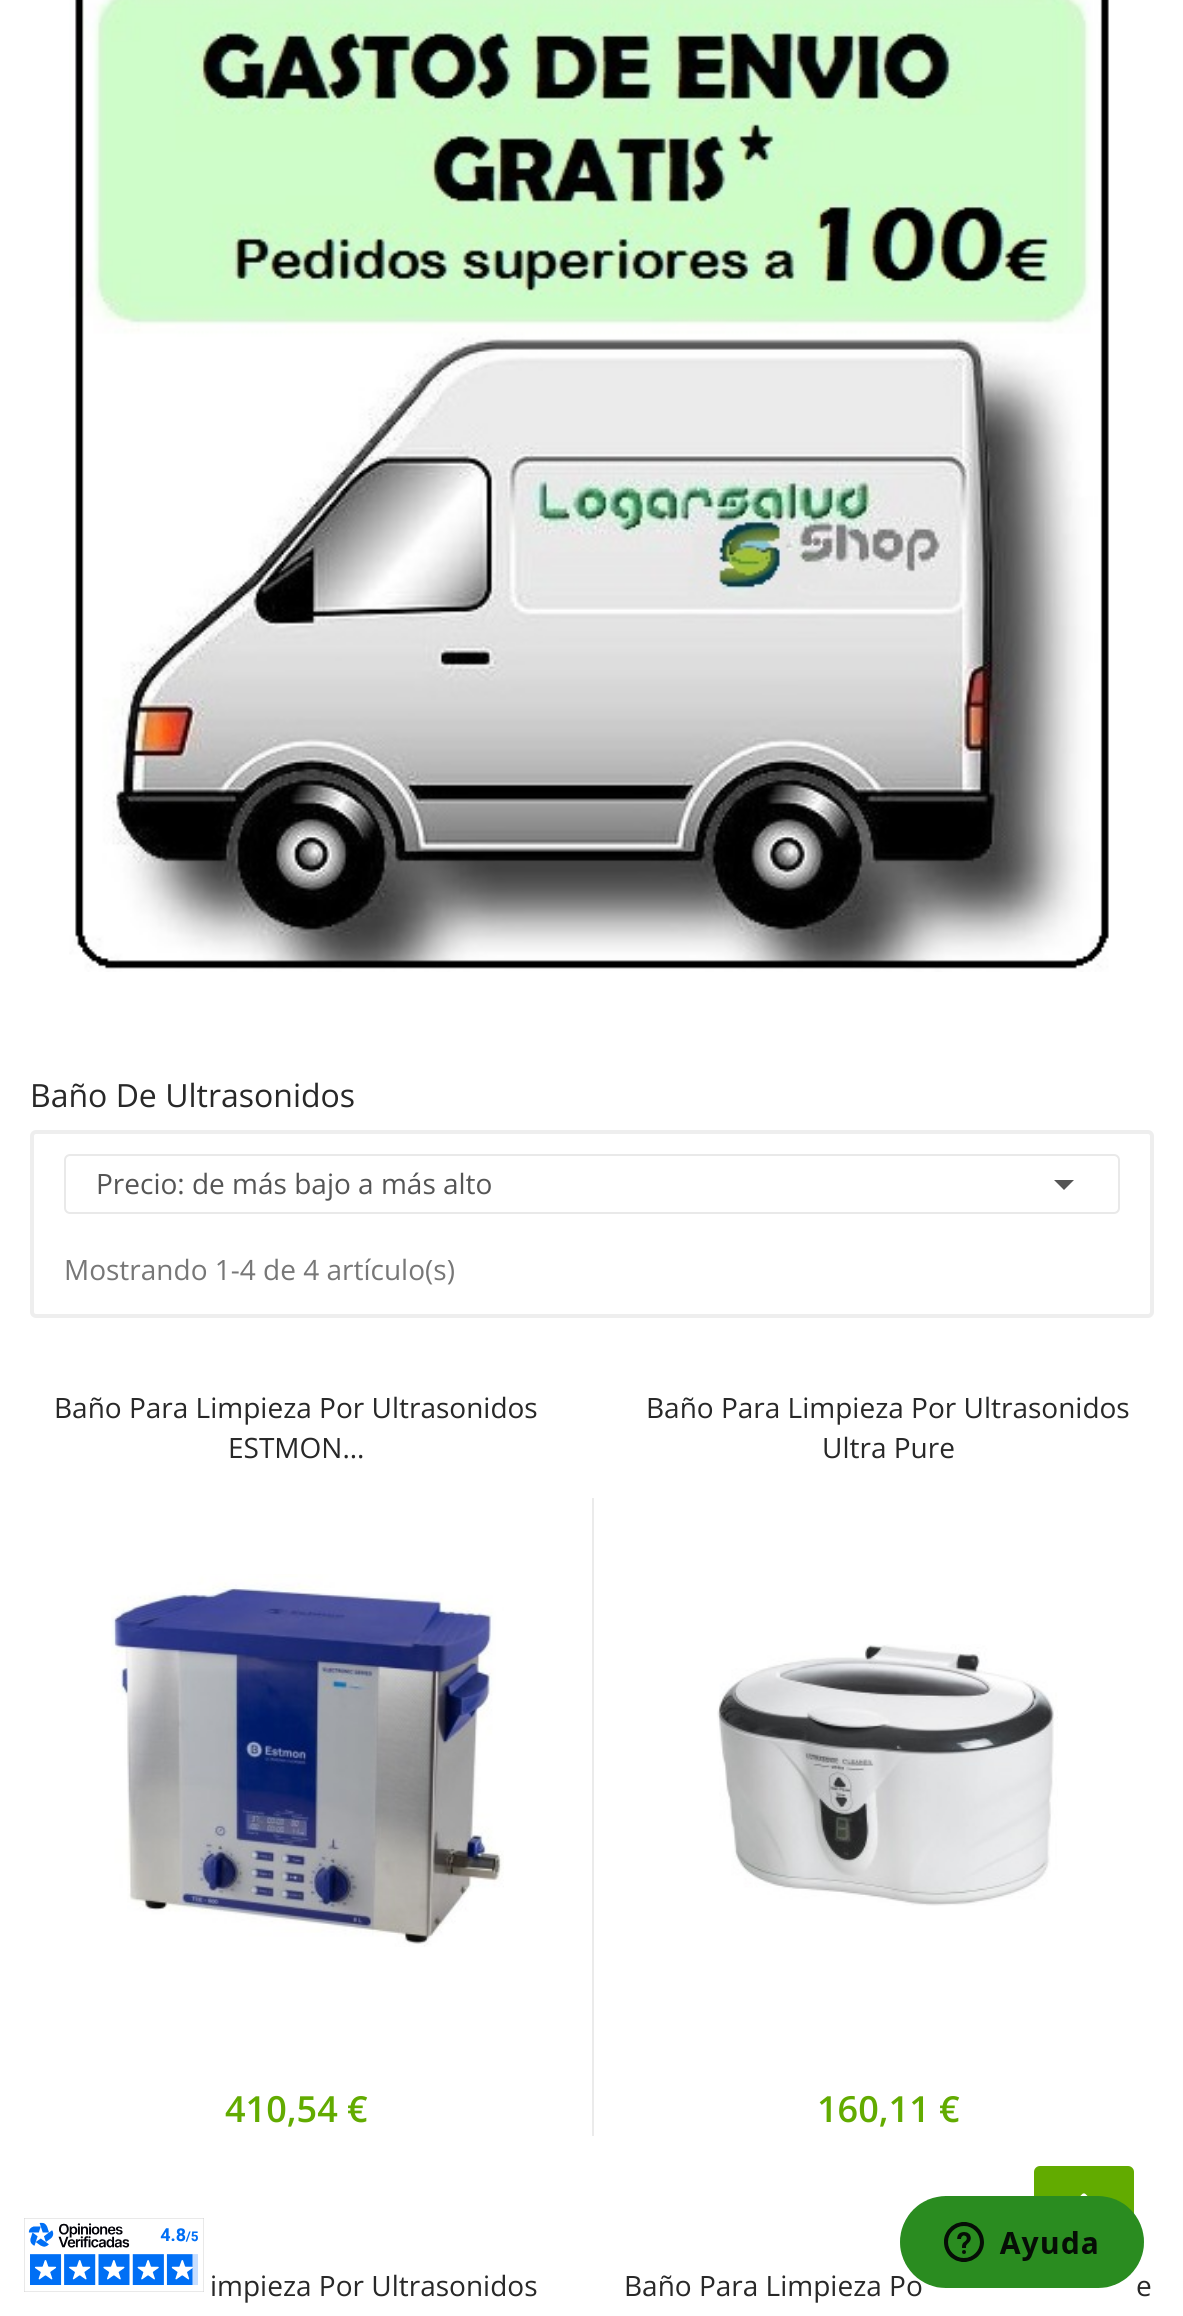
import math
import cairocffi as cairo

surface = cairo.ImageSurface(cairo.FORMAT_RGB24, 1183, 2316)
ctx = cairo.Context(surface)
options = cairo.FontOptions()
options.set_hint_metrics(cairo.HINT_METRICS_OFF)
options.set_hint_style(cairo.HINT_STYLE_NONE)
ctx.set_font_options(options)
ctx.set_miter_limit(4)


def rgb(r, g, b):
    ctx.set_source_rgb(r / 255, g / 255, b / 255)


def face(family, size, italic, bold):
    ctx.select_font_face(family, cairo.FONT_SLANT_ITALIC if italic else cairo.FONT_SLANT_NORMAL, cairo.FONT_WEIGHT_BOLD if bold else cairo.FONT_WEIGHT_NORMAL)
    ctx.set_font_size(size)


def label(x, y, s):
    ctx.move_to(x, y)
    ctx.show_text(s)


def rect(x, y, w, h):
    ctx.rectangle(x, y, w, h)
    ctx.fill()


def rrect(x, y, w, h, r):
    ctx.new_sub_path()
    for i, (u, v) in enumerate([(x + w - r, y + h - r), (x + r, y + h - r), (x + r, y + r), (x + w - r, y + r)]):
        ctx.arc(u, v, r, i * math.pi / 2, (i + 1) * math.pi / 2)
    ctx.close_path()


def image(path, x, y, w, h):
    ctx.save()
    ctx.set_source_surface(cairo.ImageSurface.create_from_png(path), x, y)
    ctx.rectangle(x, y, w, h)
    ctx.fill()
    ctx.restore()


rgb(255, 255, 255)
ctx.paint()
image('image0.png', 69, 0, 1040, 972)
face('Open Sans', 32, 0, 0)
rgb(40, 40, 40)
label(30, 1107, 'Baño De Ultrasonidos')
rrect(32, 1132, 1120, 184, 4)
rgb(238, 238, 238)
ctx.set_line_width(4)
ctx.stroke()
rrect(65, 1155, 1054, 58, 5)
rgb(233, 233, 233)
ctx.set_line_width(2)
ctx.stroke()
face('Open Sans', 28, 0, 0)
rgb(85, 85, 85)
label(96, 1194, 'Precio: de más bajo a más alto')
ctx.new_path()
ctx.move_to(1054, 1180)
ctx.line_to(1074, 1180)
ctx.line_to(1064, 1190)
ctx.close_path()
ctx.fill()
rgb(119, 119, 119)
label(64, 1280, 'Mostrando 1-4 de 4 artículo(s)')
rgb(40, 40, 40)
label(54, 1418, 'Baño Para Limpieza Por Ultrasonidos')
label(228, 1458, 'ESTMON...')
image('image1.png', 111, 1574, 393, 373)
face('Open Sans SemiBold', 36, 0, 0)
rgb(98, 171, 0)
label(225, 2122, '410,54 €')
face('Open Sans', 28, 0, 0)
rgb(40, 40, 40)
label(646, 1418, 'Baño Para Limpieza Por Ultrasonidos')
label(822, 1458, 'Ultra Pure')
rgb(235, 235, 235)
rect(592, 1498, 2, 638)
image('image2.png', 717, 1644, 341, 262)
face('Open Sans SemiBold', 36, 0, 0)
rgb(98, 171, 0)
label(817, 2122, '160,11 €')
face('Open Sans', 28, 0, 0)
rgb(40, 40, 40)
label(210, 2296, 'impieza Por Ultrasonidos')
label(624, 2296, 'Baño Para Limpieza Po')
label(1136, 2296, 'e')
rgb(98, 171, 0)
rrect(1034, 2166, 100, 100, 6)
ctx.fill()
image('image3.png', 1080, 2193, 8, 3)
image('image4.png', 24, 2218, 180, 74)
image('image5.png', 900, 2196, 244, 92)
surface.write_to_png('render.png')
